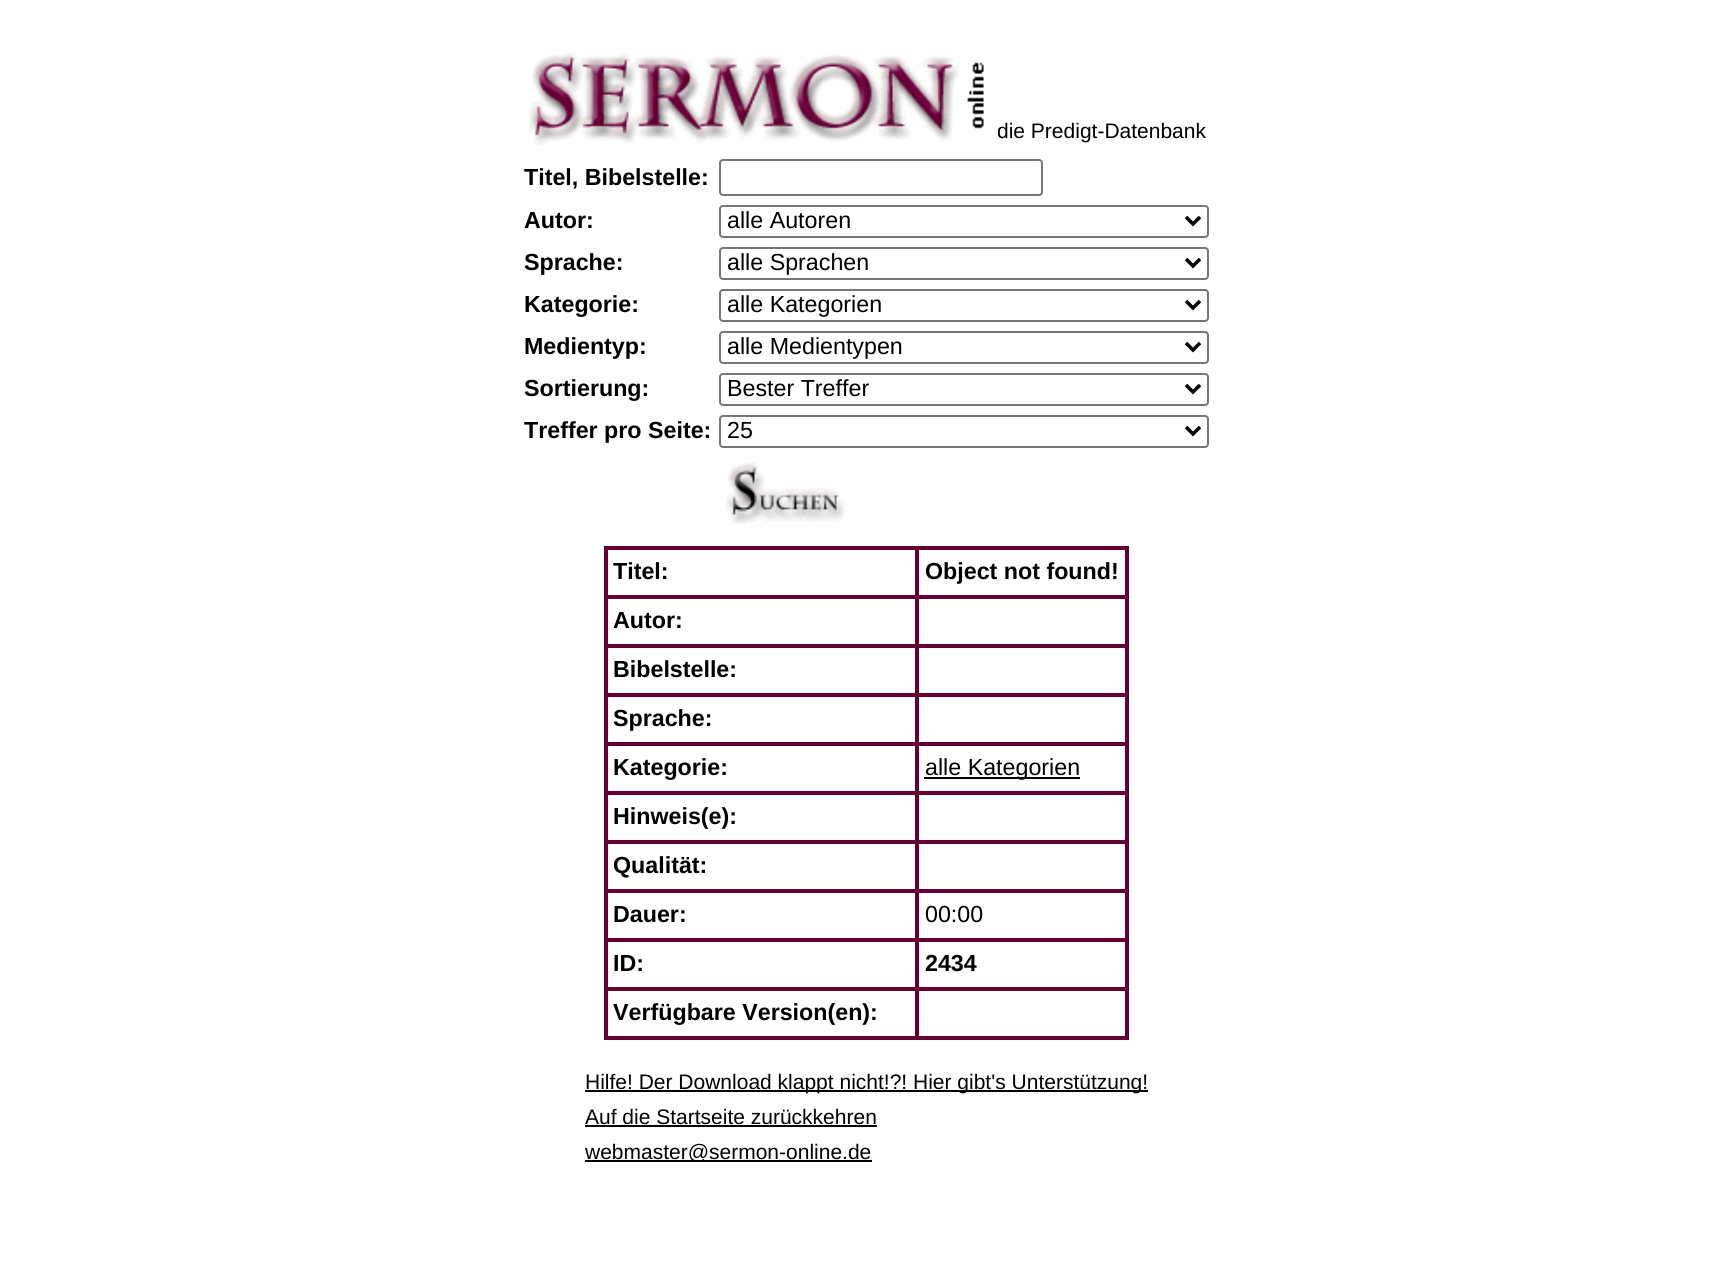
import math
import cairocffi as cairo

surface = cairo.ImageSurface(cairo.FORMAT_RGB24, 1731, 1286)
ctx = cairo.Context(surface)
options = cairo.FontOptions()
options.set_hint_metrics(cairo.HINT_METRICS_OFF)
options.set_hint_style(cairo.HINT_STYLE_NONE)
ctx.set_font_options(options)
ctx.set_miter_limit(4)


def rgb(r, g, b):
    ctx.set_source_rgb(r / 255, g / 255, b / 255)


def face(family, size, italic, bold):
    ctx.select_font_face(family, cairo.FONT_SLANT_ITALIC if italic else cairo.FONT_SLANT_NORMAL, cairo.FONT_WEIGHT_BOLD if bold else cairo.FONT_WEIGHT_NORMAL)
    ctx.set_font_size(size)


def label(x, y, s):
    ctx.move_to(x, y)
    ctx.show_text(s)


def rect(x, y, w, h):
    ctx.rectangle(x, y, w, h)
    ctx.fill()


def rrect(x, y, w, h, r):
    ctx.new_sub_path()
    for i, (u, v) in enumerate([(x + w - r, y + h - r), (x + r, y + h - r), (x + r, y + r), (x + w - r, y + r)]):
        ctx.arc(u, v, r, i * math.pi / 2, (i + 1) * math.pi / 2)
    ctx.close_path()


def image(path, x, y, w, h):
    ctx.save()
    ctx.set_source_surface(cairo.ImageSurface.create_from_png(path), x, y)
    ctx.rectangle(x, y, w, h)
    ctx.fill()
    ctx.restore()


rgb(255, 255, 255)
ctx.paint()
image('image0.png', 529, 51, 455, 94)
face('Liberation Sans', 21, 0, 0)
rgb(0, 0, 0)
label(997, 138, 'die Predigt-Datenbank')
face('Liberation Sans', 23.25, 0, 1)
label(524, 185, 'Titel, Bibelstelle:')
rrect(720, 160, 322, 35, 3)
rgb(118, 118, 118)
ctx.stroke()
rgb(0, 0, 0)
label(524, 228, 'Autor:')
rrect(720, 206, 488, 31, 3)
rgb(118, 118, 118)
ctx.stroke()
ctx.new_path()
ctx.move_to(1186, 217)
ctx.line_to(1193, 224)
ctx.line_to(1200, 217)
rgb(0, 0, 0)
ctx.set_line_width(3.5)
ctx.stroke()
face('Liberation Sans', 23.25, 0, 0)
label(727, 228, 'alle Autoren')
face('Liberation Sans', 23.25, 0, 1)
label(524, 270, 'Sprache:')
rrect(720, 248, 488, 31, 3)
rgb(118, 118, 118)
ctx.set_line_width(2)
ctx.stroke()
ctx.new_path()
ctx.move_to(1186, 259)
ctx.line_to(1193, 266)
ctx.line_to(1200, 259)
rgb(0, 0, 0)
ctx.set_line_width(3.5)
ctx.stroke()
face('Liberation Sans', 23.25, 0, 0)
label(727, 270, 'alle Sprachen')
face('Liberation Sans', 23.25, 0, 1)
label(524, 312, 'Kategorie:')
rrect(720, 290, 488, 31, 3)
rgb(118, 118, 118)
ctx.set_line_width(2)
ctx.stroke()
ctx.new_path()
ctx.move_to(1186, 301)
ctx.line_to(1193, 308)
ctx.line_to(1200, 301)
rgb(0, 0, 0)
ctx.set_line_width(3.5)
ctx.stroke()
face('Liberation Sans', 23.25, 0, 0)
label(727, 312, 'alle Kategorien')
face('Liberation Sans', 23.25, 0, 1)
label(524, 354, 'Medientyp:')
rrect(720, 332, 488, 31, 3)
rgb(118, 118, 118)
ctx.set_line_width(2)
ctx.stroke()
ctx.new_path()
ctx.move_to(1186, 343)
ctx.line_to(1193, 350)
ctx.line_to(1200, 343)
rgb(0, 0, 0)
ctx.set_line_width(3.5)
ctx.stroke()
face('Liberation Sans', 23.25, 0, 0)
label(727, 354, 'alle Medientypen')
face('Liberation Sans', 23.25, 0, 1)
label(524, 396, 'Sortierung:')
rrect(720, 374, 488, 31, 3)
rgb(118, 118, 118)
ctx.set_line_width(2)
ctx.stroke()
ctx.new_path()
ctx.move_to(1186, 385)
ctx.line_to(1193, 392)
ctx.line_to(1200, 385)
rgb(0, 0, 0)
ctx.set_line_width(3.5)
ctx.stroke()
face('Liberation Sans', 23.25, 0, 0)
label(727, 396, 'Bester Treffer')
face('Liberation Sans', 23.25, 0, 1)
label(524, 438, 'Treffer pro Seite:')
rrect(720, 416, 488, 31, 3)
rgb(118, 118, 118)
ctx.set_line_width(2)
ctx.stroke()
ctx.new_path()
ctx.move_to(1186, 427)
ctx.line_to(1193, 434)
ctx.line_to(1200, 427)
rgb(0, 0, 0)
ctx.set_line_width(3.5)
ctx.stroke()
face('Liberation Sans', 23.25, 0, 0)
label(727, 438, '25')
image('image1.png', 725, 462, 122, 63)
ctx.rectangle(605, 547, 523, 492)
rgb(102, 0, 51)
ctx.set_line_width(2)
ctx.stroke()
ctx.rectangle(607, 549, 309, 47)
ctx.stroke()
face('Liberation Sans', 23.25, 0, 1)
rgb(0, 0, 0)
label(613, 579, 'Titel:')
ctx.rectangle(918, 549, 208, 47)
rgb(102, 0, 51)
ctx.stroke()
rgb(0, 0, 0)
label(925, 579, 'Object not found!')
ctx.rectangle(607, 598, 309, 47)
rgb(102, 0, 51)
ctx.stroke()
rgb(0, 0, 0)
label(613, 628, 'Autor:')
ctx.rectangle(918, 598, 208, 47)
rgb(102, 0, 51)
ctx.stroke()
ctx.rectangle(607, 647, 309, 47)
ctx.stroke()
rgb(0, 0, 0)
label(613, 677, 'Bibelstelle:')
ctx.rectangle(918, 647, 208, 47)
rgb(102, 0, 51)
ctx.stroke()
ctx.rectangle(607, 696, 309, 47)
ctx.stroke()
rgb(0, 0, 0)
label(613, 726, 'Sprache:')
ctx.rectangle(918, 696, 208, 47)
rgb(102, 0, 51)
ctx.stroke()
ctx.rectangle(607, 745, 309, 47)
ctx.stroke()
rgb(0, 0, 0)
label(613, 775, 'Kategorie:')
ctx.rectangle(918, 745, 208, 47)
rgb(102, 0, 51)
ctx.stroke()
rgb(0, 0, 0)
rect(924, 777, 156, 2)
face('Liberation Sans', 23.25, 0, 0)
label(925, 775, 'alle Kategorien')
ctx.rectangle(607, 794, 309, 47)
rgb(102, 0, 51)
ctx.stroke()
face('Liberation Sans', 23.25, 0, 1)
rgb(0, 0, 0)
label(613, 824, 'Hinweis(e):')
ctx.rectangle(918, 794, 208, 47)
rgb(102, 0, 51)
ctx.stroke()
ctx.rectangle(607, 843, 309, 47)
ctx.stroke()
rgb(0, 0, 0)
label(613, 873, 'Qualität:')
ctx.rectangle(918, 843, 208, 47)
rgb(102, 0, 51)
ctx.stroke()
ctx.rectangle(607, 892, 309, 47)
ctx.stroke()
rgb(0, 0, 0)
label(613, 922, 'Dauer:')
ctx.rectangle(918, 892, 208, 47)
rgb(102, 0, 51)
ctx.stroke()
face('Liberation Sans', 23.25, 0, 0)
rgb(0, 0, 0)
label(925, 922, '00:00')
ctx.rectangle(607, 941, 309, 47)
rgb(102, 0, 51)
ctx.stroke()
face('Liberation Sans', 23.25, 0, 1)
rgb(0, 0, 0)
label(613, 971, 'ID:')
ctx.rectangle(918, 941, 208, 47)
rgb(102, 0, 51)
ctx.stroke()
rgb(0, 0, 0)
label(925, 971, '2434')
ctx.rectangle(607, 990, 309, 47)
rgb(102, 0, 51)
ctx.stroke()
rgb(0, 0, 0)
label(613, 1020, 'Verfügbare Version(en):')
ctx.rectangle(918, 990, 208, 47)
rgb(102, 0, 51)
ctx.stroke()
rgb(0, 0, 0)
rect(585, 1090, 563, 2)
face('Liberation Sans', 21, 0, 0)
label(585, 1089, 'Hilfe! Der Download klappt nicht!?! Hier gibt\'s Unterstützung!')
label(585, 1124, 'Auf die Startseite zurückkehren')
rect(585, 1125, 292, 2)
rect(585, 1160, 287, 2)
label(585, 1159, 'webmaster@sermon-online.de')
surface.write_to_png('render.png')
